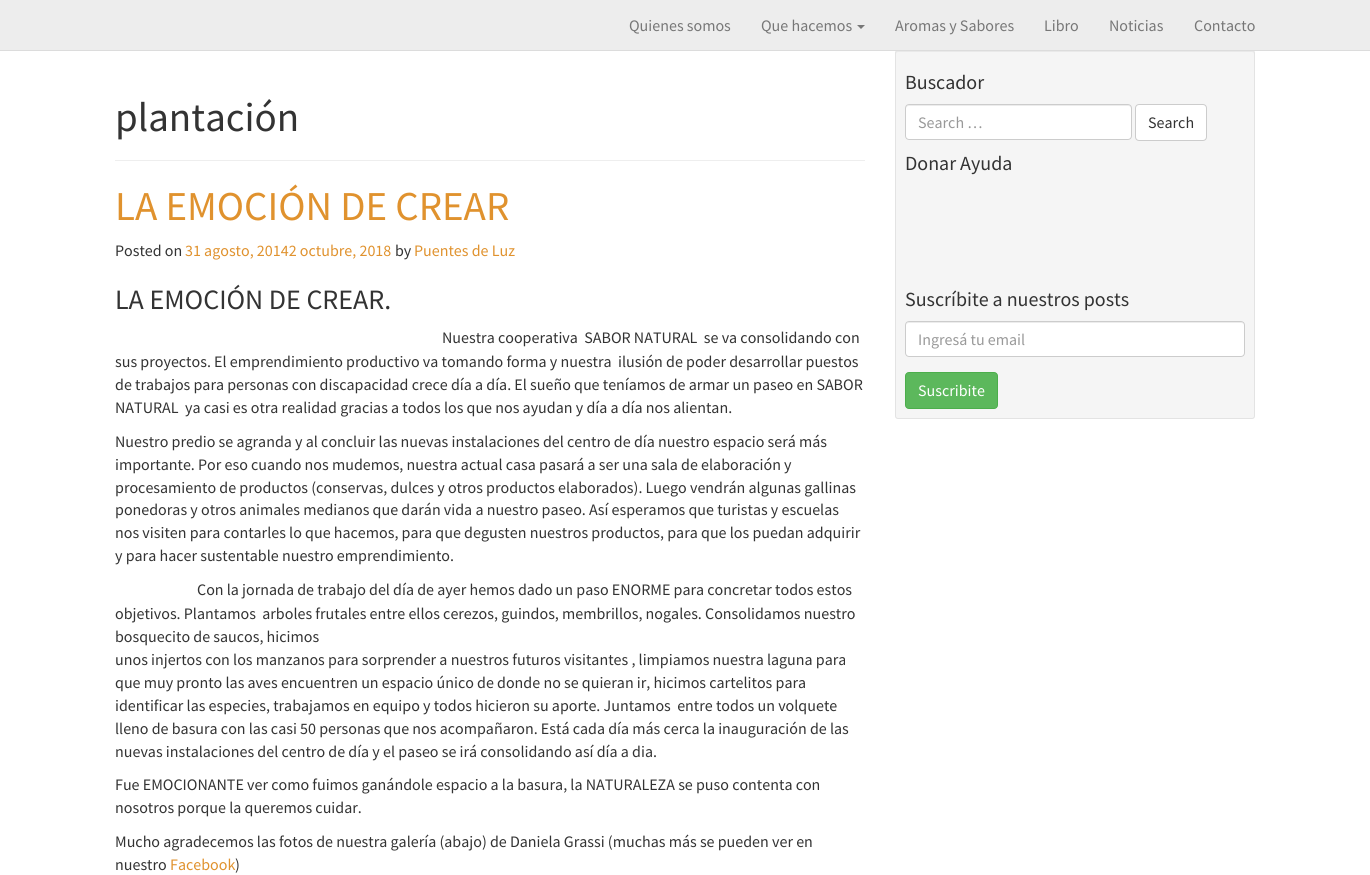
import math
import cairocffi as cairo

surface = cairo.ImageSurface(cairo.FORMAT_RGB24, 1370, 875)
ctx = cairo.Context(surface)
options = cairo.FontOptions()
options.set_hint_metrics(cairo.HINT_METRICS_OFF)
options.set_hint_style(cairo.HINT_STYLE_NONE)
ctx.set_font_options(options)
ctx.set_miter_limit(4)


def rgb(r, g, b):
    ctx.set_source_rgb(r / 255, g / 255, b / 255)


def face(family, size, italic, bold):
    ctx.select_font_face(family, cairo.FONT_SLANT_ITALIC if italic else cairo.FONT_SLANT_NORMAL, cairo.FONT_WEIGHT_BOLD if bold else cairo.FONT_WEIGHT_NORMAL)
    ctx.set_font_size(size)


def label(x, y, s):
    ctx.move_to(x, y)
    ctx.show_text(s)


def rect(x, y, w, h):
    ctx.rectangle(x, y, w, h)
    ctx.fill()


def rrect(x, y, w, h, r):
    ctx.new_sub_path()
    for i, (u, v) in enumerate([(x + w - r, y + h - r), (x + r, y + h - r), (x + r, y + r), (x + w - r, y + r)]):
        ctx.arc(u, v, r, i * math.pi / 2, (i + 1) * math.pi / 2)
    ctx.close_path()


rgb(255, 255, 255)
ctx.paint()
rgb(237, 237, 237)
rect(0, 0, 1370, 50)
rgb(245, 245, 245)
rrect(895, 50, 360, 369, 3)
ctx.fill()
rgb(233, 233, 233)
ctx.new_path()
ctx.move_to(898, 52)
ctx.line_to(1252, 52)
ctx.curve_to(1253, 52, 1254, 53, 1254, 54)
ctx.curve_to(1254, 53, 1254, 51, 1252, 51)
ctx.line_to(898, 51)
ctx.curve_to(896, 51, 896, 53, 896, 54)
ctx.curve_to(896, 53, 897, 52, 898, 52)
ctx.close_path()
ctx.fill()
rrect(895.5, 50.5, 359, 368, 2.5)
rgb(227, 227, 227)
ctx.set_line_width(1)
ctx.stroke()
rgb(220, 220, 220)
rect(0, 50, 1370, 1)
face('Source Sans Pro', 16, 0, 0)
rgb(119, 119, 119)
label(629, 31, 'Quienes somos')
label(761, 31, 'Que hacemos')
ctx.new_path()
ctx.move_to(857, 25)
ctx.line_to(865, 25)
ctx.line_to(861, 29)
ctx.close_path()
ctx.fill()
label(895, 31, 'Aromas y Sabores')
label(1044, 31, 'Libro')
label(1109, 31, 'Noticias')
label(1194, 31, 'Contacto')
rgb(238, 238, 238)
rect(115, 160, 750, 1)
face('Source Sans Pro', 41, 0, 0)
rgb(51, 51, 51)
label(115, 131, 'plantación')
rgb(224, 146, 46)
label(115, 220, 'LA EMOCIÓN DE CREAR')
face('Source Sans Pro', 16, 0, 0)
rgb(51, 51, 51)
label(115, 256, 'Posted on')
rgb(224, 146, 46)
label(185, 256, '31 agosto, 20142 octubre, 2018')
rgb(51, 51, 51)
label(395, 256, 'by')
rgb(224, 146, 46)
label(414, 256, 'Puentes de Luz')
face('Source Sans Pro', 28, 0, 0)
rgb(51, 51, 51)
label(115, 309, 'LA EMOCIÓN DE CREAR.')
face('Source Sans Pro', 16, 0, 0)
label(442, 343, 'Nuestra cooperativa  SABOR NATURAL  se va consolidando con')
label(115, 367, 'sus proyectos. El emprendimiento productivo va tomando forma y nuestra  ilusión de poder desarrollar puestos')
label(115, 390, 'de trabajos para personas con discapacidad crece día a día. El sueño que teníamos de armar un paseo en SABOR')
label(115, 413, 'NATURAL  ya casi es otra realidad gracias a todos los que nos ayudan y día a día nos alientan.')
label(115, 447, 'Nuestro predio se agranda y al concluir las nuevas instalaciones del centro de día nuestro espacio será más')
label(115, 470, 'importante. Por eso cuando nos mudemos, nuestra actual casa pasará a ser una sala de elaboración y')
label(115, 493, 'procesamiento de productos (conservas, dulces y otros productos elaborados). Luego vendrán algunas gallinas')
label(115, 515, 'ponedoras y otros animales medianos que darán vida a nuestro paseo. Así esperamos que turistas y escuelas')
label(115, 538, 'nos visiten para contarles lo que hacemos, para que degusten nuestros productos, para que los puedan adquirir')
label(115, 561, 'y para hacer sustentable nuestro emprendimiento.')
label(197, 595, 'Con la jornada de trabajo del día de ayer hemos dado un paso ENORME para concretar todos estos')
label(115, 619, 'objetivos. Plantamos  arboles frutales entre ellos cerezos, guindos, membrillos, nogales. Consolidamos nuestro')
label(115, 642, 'bosquecito de saucos, hicimos')
label(115, 665, 'unos injertos con los manzanos para sorprender a nuestros futuros visitantes , limpiamos nuestra laguna para')
label(115, 688, 'que muy pronto las aves encuentren un espacio único de donde no se quieran ir, hicimos cartelitos para')
label(115, 711, 'identificar las especies, trabajamos en equipo y todos hicieron su aporte. Juntamos  entre todos un volquete')
label(115, 734, 'lleno de basura con las casi 50 personas que nos acompañaron. Está cada día más cerca la inauguración de las')
label(115, 757, 'nuevas instalaciones del centro de día y el paseo se irá consolidando así día a dia.')
label(115, 790, 'Fue EMOCIONANTE ver como fuimos ganándole espacio a la basura, la NATURALEZA se puso contenta con')
label(115, 813, 'nosotros porque la queremos cuidar.')
label(115, 847, 'Mucho agradecemos las fotos de nuestra galería (abajo) de Daniela Grassi (muchas más se pueden ver en')
label(115, 870, 'nuestro')
rgb(224, 146, 46)
label(170, 870, 'Facebook')
rgb(51, 51, 51)
label(235, 870, ')')
face('Source Sans Pro', 20, 0, 0)
label(905, 89, 'Buscador')
rgb(255, 255, 255)
rrect(905, 104, 227, 36, 4)
ctx.fill()
rgb(236, 236, 236)
ctx.new_path()
ctx.move_to(909, 106)
ctx.line_to(1128, 106)
ctx.curve_to(1130, 106, 1131, 107, 1131, 109)
ctx.line_to(1131, 108)
ctx.curve_to(1131, 106, 1130, 105, 1128, 105)
ctx.line_to(909, 105)
ctx.curve_to(907, 105, 906, 106, 906, 108)
ctx.line_to(906, 109)
ctx.curve_to(906, 107, 907, 106, 909, 106)
ctx.close_path()
ctx.fill()
rrect(905.5, 104.5, 226, 35, 3.5)
rgb(204, 204, 204)
ctx.stroke()
face('Source Sans Pro', 16, 0, 0)
rgb(153, 153, 153)
label(918, 128, 'Search …')
rgb(255, 255, 255)
rrect(1135.5, 104.5, 71, 36, 3.5)
ctx.fill_preserve()
rgb(204, 204, 204)
ctx.stroke()
rgb(51, 51, 51)
label(1148, 128, 'Search')
face('Source Sans Pro', 20, 0, 0)
label(905, 170, 'Donar Ayuda')
label(905, 306, 'Suscríbite a nuestros posts')
rgb(255, 255, 255)
rrect(905, 321, 340, 36, 4)
ctx.fill()
rgb(236, 236, 236)
ctx.new_path()
ctx.move_to(909, 323)
ctx.line_to(1241, 323)
ctx.curve_to(1243, 323, 1244, 324, 1244, 326)
ctx.curve_to(1244, 324, 1243, 322, 1241, 322)
ctx.line_to(909, 322)
ctx.curve_to(907, 322, 906, 324, 906, 326)
ctx.curve_to(906, 324, 907, 323, 909, 323)
ctx.close_path()
ctx.fill()
rrect(905.5, 321.5, 339, 35, 3.5)
rgb(204, 204, 204)
ctx.stroke()
face('Source Sans Pro', 16, 0, 0)
rgb(153, 153, 153)
label(918, 345, 'Ingresá tu email')
rgb(92, 184, 92)
rrect(905.5, 372.5, 92, 36, 3.5)
ctx.fill_preserve()
rgb(76, 174, 76)
ctx.stroke()
rgb(255, 255, 255)
label(918, 396, 'Suscribite')
surface.write_to_png('render.png')
